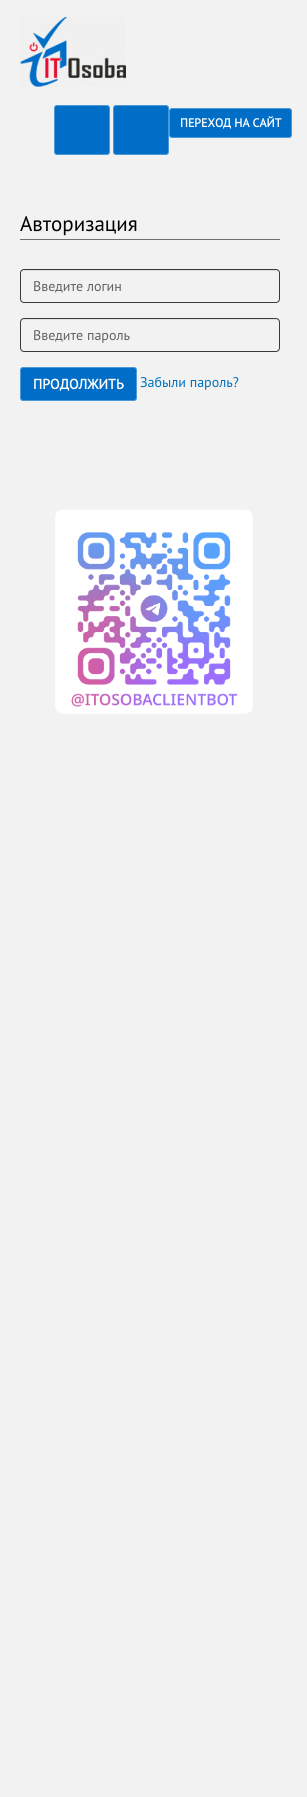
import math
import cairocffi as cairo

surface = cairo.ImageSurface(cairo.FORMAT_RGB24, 307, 1797)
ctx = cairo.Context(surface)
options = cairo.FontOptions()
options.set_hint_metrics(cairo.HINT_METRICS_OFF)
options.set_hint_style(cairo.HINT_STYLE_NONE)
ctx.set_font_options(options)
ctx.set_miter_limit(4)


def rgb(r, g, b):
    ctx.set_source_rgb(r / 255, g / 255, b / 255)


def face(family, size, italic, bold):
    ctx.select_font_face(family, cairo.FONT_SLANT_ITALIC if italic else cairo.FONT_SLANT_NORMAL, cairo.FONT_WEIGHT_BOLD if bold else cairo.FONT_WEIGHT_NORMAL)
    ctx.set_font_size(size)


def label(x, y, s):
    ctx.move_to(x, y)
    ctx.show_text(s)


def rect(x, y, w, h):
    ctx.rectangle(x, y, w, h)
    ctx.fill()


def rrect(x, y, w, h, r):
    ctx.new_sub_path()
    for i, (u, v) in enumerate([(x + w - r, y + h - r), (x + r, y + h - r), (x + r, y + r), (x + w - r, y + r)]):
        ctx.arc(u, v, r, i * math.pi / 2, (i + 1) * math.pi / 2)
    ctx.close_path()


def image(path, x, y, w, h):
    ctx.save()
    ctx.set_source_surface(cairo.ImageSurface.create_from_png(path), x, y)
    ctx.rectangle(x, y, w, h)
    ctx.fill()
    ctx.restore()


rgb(242, 242, 242)
ctx.paint()
image('image0.png', 20, 17, 106, 70)
rgb(0, 109, 198)
rrect(54.5, 105.5, 55, 49, 2.5)
ctx.fill_preserve()
rgb(77, 153, 216)
ctx.set_line_width(1)
ctx.stroke()
rgb(0, 109, 198)
rrect(113.5, 105.5, 55, 49, 2.5)
ctx.fill_preserve()
rgb(77, 153, 216)
ctx.stroke()
rgb(0, 109, 198)
rrect(169.5, 108.5, 122, 29, 2.5)
ctx.fill_preserve()
rgb(77, 153, 216)
ctx.stroke()
face('PT Sans', 12, 0, 1)
rgb(255, 255, 255)
label(180, 127, 'ПЕРЕХОД НА САЙТ')
rgb(111, 111, 111)
rect(20, 239, 260, 1)
face('PT Sans', 21, 0, 0)
rgb(0, 0, 0)
label(20, 231, 'Авторизация')
rgb(224, 224, 224)
ctx.new_path()
ctx.move_to(24, 271)
ctx.line_to(277, 271)
ctx.line_to(279, 272)
ctx.line_to(279, 274)
ctx.line_to(279, 273)
ctx.curve_to(279, 271, 278, 270, 276, 270)
ctx.line_to(24, 270)
ctx.curve_to(22, 270, 21, 271, 21, 273)
ctx.line_to(21, 274)
ctx.curve_to(21, 272, 22, 271, 24, 271)
ctx.close_path()
ctx.fill()
rrect(20.5, 269.5, 259, 33, 3.5)
rgb(58, 58, 58)
ctx.stroke()
face('PT Sans', 14, 0, 0)
rgb(97, 97, 97)
label(33, 291, 'Введите логин')
rgb(224, 224, 224)
ctx.new_path()
ctx.move_to(24, 320)
ctx.line_to(277, 320)
ctx.line_to(279, 321)
ctx.line_to(279, 323)
ctx.line_to(279, 322)
ctx.curve_to(279, 320, 278, 319, 276, 319)
ctx.line_to(24, 319)
ctx.curve_to(22, 319, 21, 320, 21, 322)
ctx.line_to(21, 323)
ctx.curve_to(21, 321, 22, 320, 24, 320)
ctx.close_path()
ctx.fill()
rrect(20.5, 318.5, 259, 33, 3.5)
rgb(58, 58, 58)
ctx.stroke()
rgb(97, 97, 97)
label(33, 340, 'Введите пароль')
rgb(0, 109, 198)
rrect(20.5, 367.5, 116, 33, 2.5)
ctx.fill_preserve()
rgb(77, 153, 216)
ctx.stroke()
face('PT Sans', 14, 0, 1)
rgb(255, 255, 255)
label(33, 389, 'ПРОДОЛЖИТЬ')
face('PT Sans', 14, 0, 0)
rgb(0, 114, 188)
label(140, 387, 'Забыли пароль?')
image('image1.png', 55, 509, 198, 205)
surface.write_to_png('render.png')
